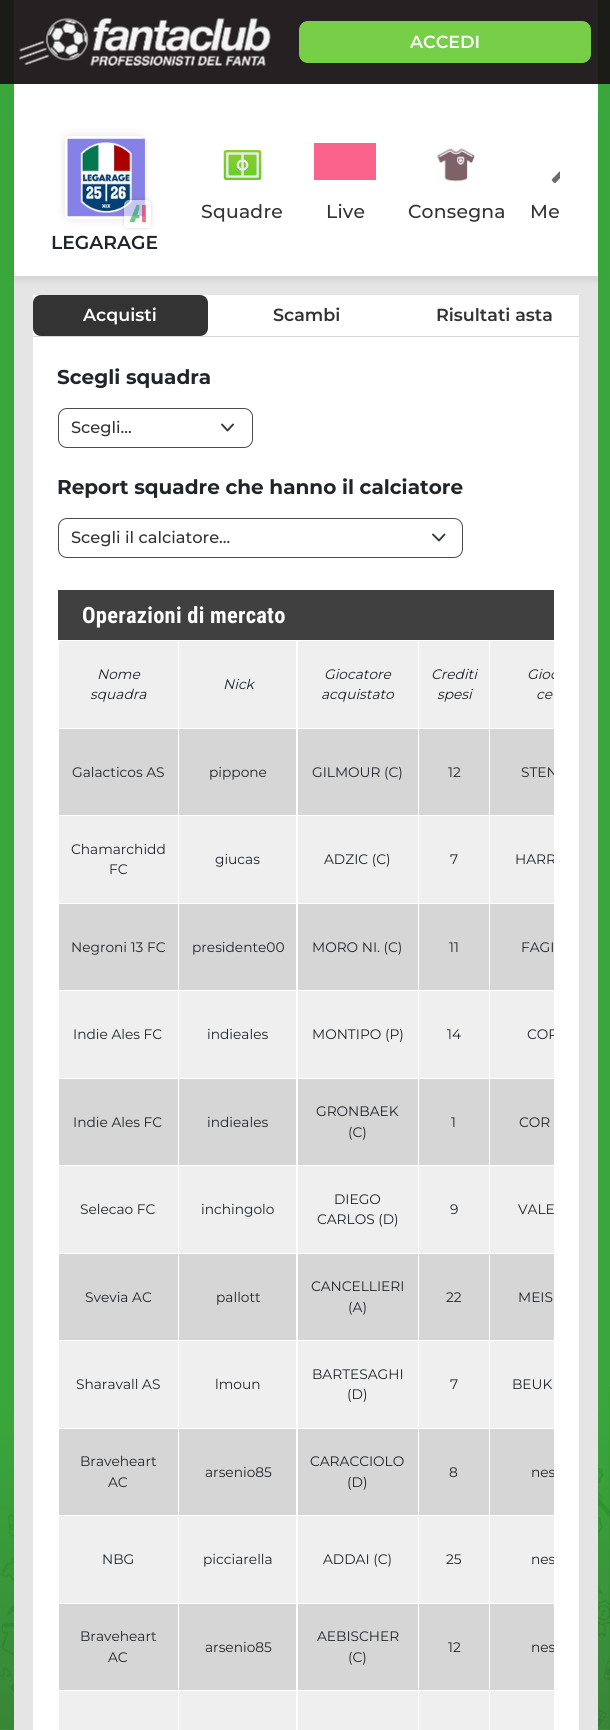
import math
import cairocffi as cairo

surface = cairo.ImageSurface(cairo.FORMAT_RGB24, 610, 1730)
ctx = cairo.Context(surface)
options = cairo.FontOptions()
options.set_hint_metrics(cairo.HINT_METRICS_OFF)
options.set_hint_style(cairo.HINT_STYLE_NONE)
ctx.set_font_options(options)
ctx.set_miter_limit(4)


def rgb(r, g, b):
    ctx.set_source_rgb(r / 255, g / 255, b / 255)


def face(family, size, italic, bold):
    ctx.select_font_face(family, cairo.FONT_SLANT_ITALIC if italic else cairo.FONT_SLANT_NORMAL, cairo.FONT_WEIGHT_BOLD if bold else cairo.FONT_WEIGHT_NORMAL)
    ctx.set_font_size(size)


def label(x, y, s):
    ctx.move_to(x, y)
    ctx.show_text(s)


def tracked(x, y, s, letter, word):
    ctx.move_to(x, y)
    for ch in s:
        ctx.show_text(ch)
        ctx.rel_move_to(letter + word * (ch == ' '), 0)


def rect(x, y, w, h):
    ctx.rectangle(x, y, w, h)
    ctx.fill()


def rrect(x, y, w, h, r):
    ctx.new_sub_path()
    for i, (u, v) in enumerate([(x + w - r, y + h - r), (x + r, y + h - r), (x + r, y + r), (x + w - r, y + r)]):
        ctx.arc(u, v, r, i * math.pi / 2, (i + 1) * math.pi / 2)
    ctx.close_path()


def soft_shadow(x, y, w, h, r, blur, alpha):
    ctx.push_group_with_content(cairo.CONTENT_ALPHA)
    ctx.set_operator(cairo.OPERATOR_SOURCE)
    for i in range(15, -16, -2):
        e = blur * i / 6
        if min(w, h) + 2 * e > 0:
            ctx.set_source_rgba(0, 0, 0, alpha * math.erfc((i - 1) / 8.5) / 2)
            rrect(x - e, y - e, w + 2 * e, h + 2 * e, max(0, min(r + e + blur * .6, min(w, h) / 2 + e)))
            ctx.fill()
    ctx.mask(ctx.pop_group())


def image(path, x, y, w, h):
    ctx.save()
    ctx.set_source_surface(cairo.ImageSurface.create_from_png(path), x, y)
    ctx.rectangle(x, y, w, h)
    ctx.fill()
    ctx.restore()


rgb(57, 167, 59)
ctx.paint()
rgb(27, 28, 24)
rect(0, 0, 610, 84)
image('image0.png', 0, 1386, 610, 344)
rgb(255, 255, 255)
rect(14, 84, 584, 30)
rgb(37, 33, 34)
rect(14, 0, 584, 84)
image('image1.png', 19, 17, 252, 49)
rgb(119, 207, 71)
rrect(299.5, 21.5, 291, 41, 8.5)
ctx.fill_preserve()
ctx.set_line_width(1)
ctx.stroke()
face('Montserrat SemiBold', 17.5, 0, 0)
rgb(255, 255, 255)
label(410, 48, 'ACCEDI')
rgb(229, 229, 229)
rect(14, 276, 584, 1454)
rgb(0, 0, 0)
soft_shadow(14, 119, 584, 162, 0, 2.5, 0.07)
rgb(255, 255, 255)
rect(14, 114, 584, 162)
image('image2.png', 223, 150, 39, 30)
face('Montserrat Medium', 18.75, 0, 0)
rgb(51, 51, 51)
tracked(201, 218, 'Squadre', 0.25, 0)
rgb(250, 99, 140)
rect(314, 143, 62, 37)
rgb(51, 51, 51)
tracked(326, 218, 'Live', 0.25, 0)
image('image3.png', 437, 148, 38, 34)
tracked(408, 218, 'Consegna', 0.25, 0)
image('image4.png', 551, 171, 9, 12)
tracked(530, 218, 'Me', 0.25, 0)
ctx.save()
ctx.set_fill_rule(cairo.FILL_RULE_EVEN_ODD)
ctx.new_path()
ctx.move_to(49, 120)
ctx.line_to(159, 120)
ctx.line_to(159, 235)
ctx.line_to(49, 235)
ctx.close_path()
ctx.move_to(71, 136)
ctx.line_to(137, 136)
ctx.curve_to(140.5, 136, 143, 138.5, 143, 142)
ctx.line_to(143, 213)
ctx.curve_to(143, 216.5, 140.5, 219, 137, 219)
ctx.line_to(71, 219)
ctx.curve_to(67.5, 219, 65, 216.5, 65, 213)
ctx.line_to(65, 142)
ctx.curve_to(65, 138.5, 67.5, 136, 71, 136)
ctx.close_path()
ctx.clip()
rgb(0, 0, 0)
soft_shadow(65, 136, 78, 83, 6, 5, 0.11)
ctx.restore()
image('image5.png', 67, 138, 78, 79)
ctx.save()
ctx.set_fill_rule(cairo.FILL_RULE_EVEN_ODD)
ctx.new_path()
ctx.move_to(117, 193)
ctx.line_to(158, 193)
ctx.line_to(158, 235)
ctx.line_to(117, 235)
ctx.close_path()
ctx.move_to(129, 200)
ctx.line_to(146, 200)
ctx.curve_to(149, 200, 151, 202, 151, 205)
ctx.line_to(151, 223)
ctx.curve_to(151, 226, 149, 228, 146, 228)
ctx.line_to(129, 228)
ctx.curve_to(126, 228, 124, 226, 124, 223)
ctx.line_to(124, 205)
ctx.curve_to(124, 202, 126, 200, 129, 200)
ctx.close_path()
ctx.clip()
rgb(0, 0, 0)
soft_shadow(124, 200, 27, 28, 5, 2, 0.17)
ctx.restore()
ctx.set_source_rgba(1, 1, 1, 0.55)
rrect(124, 200, 27, 28, 5)
ctx.fill()
image('image6.png', 129, 204, 17, 19)
face('Montserrat SemiBold', 18.75, 0, 0)
rgb(33, 37, 41)
label(51, 249, 'LEGARAGE')
rgb(255, 255, 255)
rect(33, 295, 546, 1435)
rgb(215, 215, 215)
rect(33, 336, 546, 1)
rgb(51, 51, 51)
rrect(33, 295, 175, 41, 8)
ctx.fill()
face('Montserrat SemiBold', 17.5, 0, 0)
rgb(255, 255, 255)
label(83, 321, 'Acquisti')
rgb(51, 51, 51)
label(273, 321, 'Scambi')
label(436, 321, 'Risultati asta')
face('Montserrat', 20, 0, 1)
rgb(33, 37, 41)
label(57, 384, 'Scegli squadra')
ctx.new_path()
ctx.move_to(222, 424.5)
ctx.line_to(227.5, 430.5)
ctx.line_to(233, 424.5)
rgb(52, 58, 64)
ctx.set_line_width(1.9)
ctx.set_line_cap(cairo.LINE_CAP_ROUND)
ctx.set_line_join(cairo.LINE_JOIN_ROUND)
ctx.stroke()
rrect(58.5, 408.5, 194, 39, 8.5)
rgb(78, 77, 77)
ctx.set_line_width(1)
ctx.set_line_cap(cairo.LINE_CAP_BUTT)
ctx.set_line_join(cairo.LINE_JOIN_MITER)
ctx.stroke()
face('Montserrat Medium', 16.25, 0, 0)
rgb(51, 51, 51)
label(71, 433, 'Scegli...')
face('Montserrat', 20, 0, 1)
rgb(33, 37, 41)
label(57, 494, 'Report squadre che hanno il calciatore')
ctx.new_path()
ctx.move_to(433, 534.5)
ctx.line_to(439, 540.5)
ctx.line_to(444.5, 534.5)
rgb(52, 58, 64)
ctx.set_line_width(1.9)
ctx.set_line_cap(cairo.LINE_CAP_ROUND)
ctx.set_line_join(cairo.LINE_JOIN_ROUND)
ctx.stroke()
rrect(58.5, 518.5, 404, 39, 8.5)
rgb(78, 77, 77)
ctx.set_line_width(1)
ctx.set_line_cap(cairo.LINE_CAP_BUTT)
ctx.set_line_join(cairo.LINE_JOIN_MITER)
ctx.stroke()
face('Montserrat Medium', 16.25, 0, 0)
rgb(51, 51, 51)
label(71, 543, 'Scegli il calciatore...')
rgb(64, 64, 64)
rect(58, 590, 496, 50)
face('Roboto Condensed', 22.5, 0, 1)
rgb(255, 255, 255)
tracked(82, 623, 'Operazioni di mercato', 0.25, 0)
rgb(239, 239, 239)
rect(59, 641, 119, 87)
face('Montserrat', 13.75, 1, 0)
rgb(33, 37, 41)
label(97, 679, 'Nome')
label(90, 699, 'squadra')
rgb(239, 239, 239)
rect(179, 641, 117, 87)
rgb(33, 37, 41)
label(223, 689, 'Nick')
rgb(239, 239, 239)
rect(298, 641, 120, 87)
rgb(33, 37, 41)
label(324, 679, 'Giocatore')
label(321, 699, 'acquistato')
rgb(239, 239, 239)
rect(419, 641, 70, 87)
rgb(33, 37, 41)
label(431, 679, 'Crediti')
label(437, 699, 'spesi')
rgb(239, 239, 239)
rect(490, 641, 64, 87)
ctx.save()
ctx.rectangle(58, 640, 496, 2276)
ctx.clip()
rgb(33, 37, 41)
label(527, 679, 'Gioc')
ctx.restore()
rgb(33, 37, 41)
label(536, 699, 'ce')
rgb(214, 214, 214)
rect(59, 729, 119, 86)
face('Montserrat', 13.75, 0, 0)
rgb(33, 37, 41)
label(72, 777, 'Galacticos AS')
rgb(214, 214, 214)
rect(179, 729, 117, 86)
rgb(33, 37, 41)
label(209, 777, 'pippone')
rgb(214, 214, 214)
rect(298, 729, 120, 86)
rgb(33, 37, 41)
label(312, 777, 'GILMOUR (C)')
rgb(214, 214, 214)
rect(419, 729, 70, 86)
rgb(33, 37, 41)
label(448, 777, '12')
rgb(214, 214, 214)
rect(490, 729, 64, 86)
ctx.save()
ctx.rectangle(58, 640, 496, 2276)
ctx.clip()
rgb(33, 37, 41)
label(521, 777, 'STEN')
ctx.restore()
rgb(239, 239, 239)
rect(59, 816, 119, 87)
rgb(33, 37, 41)
label(71, 854, 'Chamarchidd')
label(109, 874, 'FC')
rgb(239, 239, 239)
rect(179, 816, 117, 87)
rgb(33, 37, 41)
label(215, 864, 'giucas')
rgb(239, 239, 239)
rect(298, 816, 120, 87)
rgb(33, 37, 41)
label(324, 864, 'ADZIC (C)')
rgb(239, 239, 239)
rect(419, 816, 70, 87)
rgb(33, 37, 41)
label(450, 864, '7')
rgb(239, 239, 239)
rect(490, 816, 64, 87)
ctx.save()
ctx.rectangle(58, 640, 496, 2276)
ctx.clip()
rgb(33, 37, 41)
label(515, 864, 'HARR')
ctx.restore()
rgb(214, 214, 214)
rect(59, 904, 119, 86)
rgb(33, 37, 41)
label(71, 952, 'Negroni 13 FC')
rgb(214, 214, 214)
rect(179, 904, 117, 86)
rgb(33, 37, 41)
label(192, 952, 'presidente00')
rgb(214, 214, 214)
rect(298, 904, 120, 86)
rgb(33, 37, 41)
label(312, 952, 'MORO NI. (C)')
rgb(214, 214, 214)
rect(419, 904, 70, 86)
rgb(33, 37, 41)
label(449, 952, '11')
rgb(214, 214, 214)
rect(490, 904, 64, 86)
rgb(33, 37, 41)
label(521, 952, 'FAGI')
rgb(239, 239, 239)
rect(59, 991, 119, 87)
rgb(33, 37, 41)
label(73, 1039, 'Indie Ales FC')
rgb(239, 239, 239)
rect(179, 991, 117, 87)
rgb(33, 37, 41)
label(207, 1039, 'indieales')
rgb(239, 239, 239)
rect(298, 991, 120, 87)
rgb(33, 37, 41)
label(312, 1039, 'MONTIPO (P)')
rgb(239, 239, 239)
rect(419, 991, 70, 87)
rgb(33, 37, 41)
label(447, 1039, '14')
rgb(239, 239, 239)
rect(490, 991, 64, 87)
ctx.save()
ctx.rectangle(58, 640, 496, 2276)
ctx.clip()
rgb(33, 37, 41)
label(527, 1039, 'COR')
ctx.restore()
rgb(214, 214, 214)
rect(59, 1079, 119, 86)
rgb(33, 37, 41)
label(73, 1127, 'Indie Ales FC')
rgb(214, 214, 214)
rect(179, 1079, 117, 86)
rgb(33, 37, 41)
label(207, 1127, 'indieales')
rgb(214, 214, 214)
rect(298, 1079, 120, 86)
rgb(33, 37, 41)
label(316, 1116, 'GRONBAEK')
label(348, 1137, '(C)')
rgb(214, 214, 214)
rect(419, 1079, 70, 86)
rgb(33, 37, 41)
label(451, 1127, '1')
rgb(214, 214, 214)
rect(490, 1079, 64, 86)
rgb(33, 37, 41)
label(519, 1127, 'COR')
rgb(239, 239, 239)
rect(59, 1166, 119, 87)
rgb(33, 37, 41)
label(80, 1214, 'Selecao FC')
rgb(239, 239, 239)
rect(179, 1166, 117, 87)
rgb(33, 37, 41)
label(201, 1214, 'inchingolo')
rgb(239, 239, 239)
rect(298, 1166, 120, 87)
rgb(33, 37, 41)
label(334, 1204, 'DIEGO')
label(317, 1224, 'CARLOS (D)')
rgb(239, 239, 239)
rect(419, 1166, 70, 87)
rgb(33, 37, 41)
label(450, 1214, '9')
rgb(239, 239, 239)
rect(490, 1166, 64, 87)
rgb(33, 37, 41)
label(518, 1214, 'VALE')
rgb(214, 214, 214)
rect(59, 1254, 119, 86)
rgb(33, 37, 41)
label(85, 1302, 'Svevia AC')
rgb(214, 214, 214)
rect(179, 1254, 117, 86)
rgb(33, 37, 41)
label(216, 1302, 'pallott')
rgb(214, 214, 214)
rect(298, 1254, 120, 86)
rgb(33, 37, 41)
label(311, 1291, 'CANCELLIERI')
label(348, 1312, '(A)')
rgb(214, 214, 214)
rect(419, 1254, 70, 86)
rgb(33, 37, 41)
label(446, 1302, '22')
rgb(214, 214, 214)
rect(490, 1254, 64, 86)
rgb(33, 37, 41)
label(518, 1302, 'MEIS')
rgb(239, 239, 239)
rect(59, 1341, 119, 87)
rgb(33, 37, 41)
label(76, 1389, 'Sharavall AS')
rgb(239, 239, 239)
rect(179, 1341, 117, 87)
rgb(33, 37, 41)
label(215, 1389, 'lmoun')
rgb(239, 239, 239)
rect(298, 1341, 120, 87)
rgb(33, 37, 41)
label(312, 1379, 'BARTESAGHI')
label(347, 1399, '(D)')
rgb(239, 239, 239)
rect(419, 1341, 70, 87)
rgb(33, 37, 41)
label(450, 1389, '7')
rgb(239, 239, 239)
rect(490, 1341, 64, 87)
rgb(33, 37, 41)
label(512, 1389, 'BEUK')
rgb(214, 214, 214)
rect(59, 1429, 119, 86)
rgb(33, 37, 41)
label(80, 1466, 'Braveheart')
label(108, 1487, 'AC')
rgb(214, 214, 214)
rect(179, 1429, 117, 86)
rgb(33, 37, 41)
label(205, 1477, 'arsenio85')
rgb(214, 214, 214)
rect(298, 1429, 120, 86)
rgb(33, 37, 41)
label(310, 1466, 'CARACCIOLO')
label(347, 1487, '(D)')
rgb(214, 214, 214)
rect(419, 1429, 70, 86)
rgb(33, 37, 41)
label(449, 1477, '8')
rgb(214, 214, 214)
rect(490, 1429, 64, 86)
ctx.save()
ctx.rectangle(58, 640, 496, 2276)
ctx.clip()
rgb(33, 37, 41)
label(531, 1477, 'nes')
ctx.restore()
rgb(239, 239, 239)
rect(59, 1516, 119, 87)
rgb(33, 37, 41)
label(102, 1564, 'NBG')
rgb(239, 239, 239)
rect(179, 1516, 117, 87)
rgb(33, 37, 41)
label(203, 1564, 'picciarella')
rgb(239, 239, 239)
rect(298, 1516, 120, 87)
rgb(33, 37, 41)
label(323, 1564, 'ADDAI (C)')
rgb(239, 239, 239)
rect(419, 1516, 70, 87)
rgb(33, 37, 41)
label(446, 1564, '25')
rgb(239, 239, 239)
rect(490, 1516, 64, 87)
ctx.save()
ctx.rectangle(58, 640, 496, 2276)
ctx.clip()
rgb(33, 37, 41)
label(531, 1564, 'nes')
ctx.restore()
rgb(214, 214, 214)
rect(59, 1604, 119, 86)
rgb(33, 37, 41)
label(80, 1641, 'Braveheart')
label(108, 1662, 'AC')
rgb(214, 214, 214)
rect(179, 1604, 117, 86)
rgb(33, 37, 41)
label(205, 1652, 'arsenio85')
rgb(214, 214, 214)
rect(298, 1604, 120, 86)
rgb(33, 37, 41)
label(317, 1641, 'AEBISCHER')
label(348, 1662, '(C)')
rgb(214, 214, 214)
rect(419, 1604, 70, 86)
rgb(33, 37, 41)
label(448, 1652, '12')
rgb(214, 214, 214)
rect(490, 1604, 64, 86)
ctx.save()
ctx.rectangle(58, 640, 496, 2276)
ctx.clip()
rgb(33, 37, 41)
label(531, 1652, 'nes')
ctx.restore()
rgb(239, 239, 239)
rect(59, 1691, 119, 39)
rect(179, 1691, 117, 39)
rect(298, 1691, 120, 39)
rect(419, 1691, 70, 39)
rect(490, 1691, 64, 39)
surface.write_to_png('render.png')
